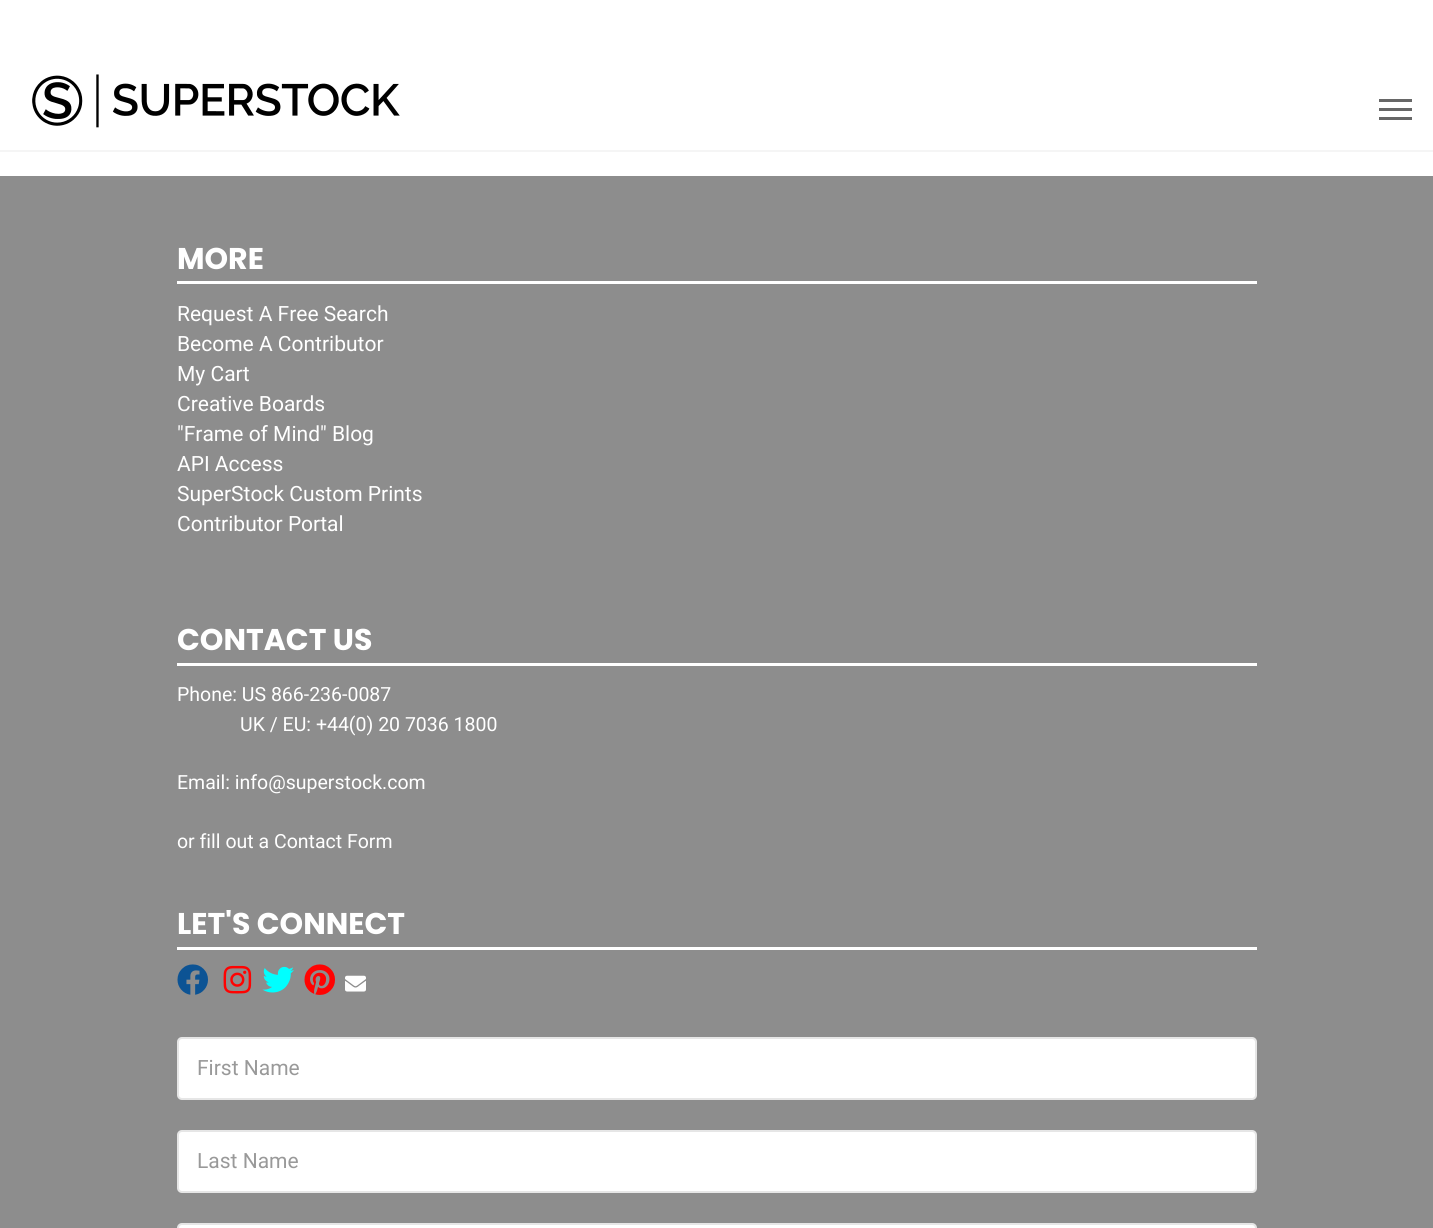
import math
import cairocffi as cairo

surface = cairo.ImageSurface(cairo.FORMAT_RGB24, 1433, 1228)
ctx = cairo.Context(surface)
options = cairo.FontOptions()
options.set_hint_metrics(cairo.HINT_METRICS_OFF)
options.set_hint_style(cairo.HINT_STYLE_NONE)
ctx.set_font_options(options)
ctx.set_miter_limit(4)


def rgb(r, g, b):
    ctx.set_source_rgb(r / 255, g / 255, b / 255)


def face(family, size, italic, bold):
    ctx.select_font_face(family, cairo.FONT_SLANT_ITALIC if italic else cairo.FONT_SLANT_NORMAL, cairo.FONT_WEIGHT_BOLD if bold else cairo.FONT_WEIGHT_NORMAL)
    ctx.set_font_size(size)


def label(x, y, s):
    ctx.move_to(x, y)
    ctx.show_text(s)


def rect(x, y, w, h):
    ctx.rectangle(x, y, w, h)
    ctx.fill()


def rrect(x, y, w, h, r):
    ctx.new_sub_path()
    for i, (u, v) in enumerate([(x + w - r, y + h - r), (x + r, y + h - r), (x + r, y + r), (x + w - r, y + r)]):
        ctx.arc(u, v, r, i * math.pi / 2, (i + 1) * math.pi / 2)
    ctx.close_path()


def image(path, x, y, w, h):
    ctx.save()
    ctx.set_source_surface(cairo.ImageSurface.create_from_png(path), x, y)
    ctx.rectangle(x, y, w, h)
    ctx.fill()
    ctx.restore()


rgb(255, 255, 255)
ctx.paint()
rgb(245, 245, 245)
rect(0, 150, 1433, 2)
image('image0.png', 32, 74, 368, 54)
rgb(103, 103, 103)
rect(1379, 108, 33, 3)
rect(1379, 99, 33, 3)
rect(1379, 117, 33, 3)
rgb(141, 141, 141)
rect(0, 176, 1433, 1052)
face('Poppins', 30, 0, 1)
rgb(255, 255, 255)
label(177, 269, 'MORE')
rect(177, 281, 1080, 3)
face('Roboto', 21, 0, 0)
label(177, 321, 'Request A Free Search')
label(177, 351, 'Become A Contributor')
label(177, 381, 'My Cart')
label(177, 411, 'Creative Boards')
label(177, 441, '"Frame of Mind" Blog')
label(177, 471, 'API Access')
label(177, 501, 'SuperStock Custom Prints')
label(177, 531, 'Contributor Portal')
face('Poppins', 30, 0, 1)
label(177, 650, 'CONTACT US')
rect(177, 663, 1080, 3)
face('Roboto', 19.5, 0, 0)
label(177, 701, 'Phone: US 866-236-0087')
label(240, 731, 'UK / EU: +44(0) 20 7036 1800')
label(177, 789, 'Email: info@superstock.com')
label(177, 848, 'or fill out a Contact Form')
face('Poppins', 30, 0, 1)
label(177, 934, 'LET\'S CONNECT')
rect(177, 947, 1080, 3)
image('image1.png', 177, 964, 31, 31)
image('image2.png', 223, 965, 29, 29)
image('image3.png', 262, 966, 32, 27)
image('image4.png', 304, 964, 31, 31)
image('image5.png', 345, 975, 21, 17)
rrect(177, 1037, 1080, 63, 5)
ctx.fill()
rrect(178, 1038, 1078, 61, 4)
ctx.set_source_rgba(0, 0, 0, 0.1)
ctx.stroke()
face('Roboto', 21, 0, 0)
rgb(153, 153, 153)
label(197, 1075, 'First Name')
rgb(255, 255, 255)
rrect(177, 1130, 1080, 63, 5)
ctx.fill()
rrect(178, 1131, 1078, 61, 4)
ctx.set_source_rgba(0, 0, 0, 0.1)
ctx.stroke()
rgb(153, 153, 153)
label(197, 1168, 'Last Name')
rgb(255, 255, 255)
rrect(177, 1223, 1080, 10, 5)
ctx.fill()
rrect(178, 1224, 1078, 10, 4)
ctx.set_source_rgba(0, 0, 0, 0.1)
ctx.stroke()
surface.write_to_png('render.png')
